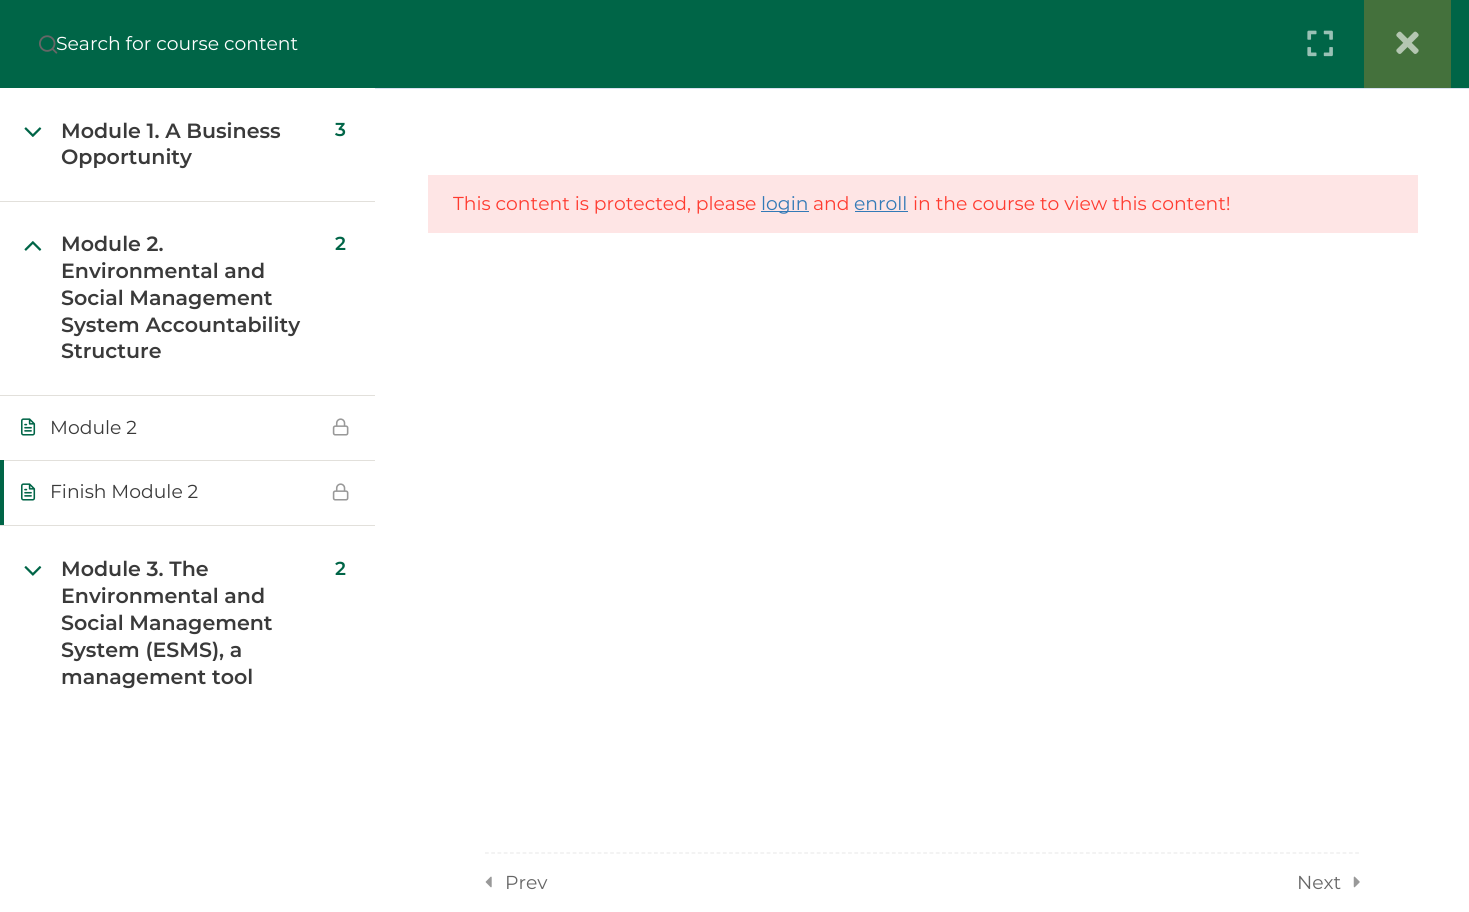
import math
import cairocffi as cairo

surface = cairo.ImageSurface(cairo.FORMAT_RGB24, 1469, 912)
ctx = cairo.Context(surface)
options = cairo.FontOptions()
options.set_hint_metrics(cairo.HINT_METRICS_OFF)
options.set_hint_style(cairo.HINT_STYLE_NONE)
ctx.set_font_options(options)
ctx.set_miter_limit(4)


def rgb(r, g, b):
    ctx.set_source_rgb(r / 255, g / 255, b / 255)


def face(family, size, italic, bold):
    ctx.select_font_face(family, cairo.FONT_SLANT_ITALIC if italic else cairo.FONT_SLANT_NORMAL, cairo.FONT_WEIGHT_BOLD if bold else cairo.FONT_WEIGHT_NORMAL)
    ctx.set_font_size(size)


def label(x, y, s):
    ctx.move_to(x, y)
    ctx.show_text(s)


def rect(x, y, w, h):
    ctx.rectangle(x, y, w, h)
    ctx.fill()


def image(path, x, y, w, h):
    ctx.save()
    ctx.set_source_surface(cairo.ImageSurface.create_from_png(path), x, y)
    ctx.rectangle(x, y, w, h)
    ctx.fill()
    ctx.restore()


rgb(255, 255, 255)
ctx.paint()
rgb(0, 101, 71)
rect(0, 0, 1469, 88)
face('Montserrat', 18.75, 0, 0)
rgb(255, 255, 255)
label(56, 50, 'Search for course content')
image('image0.png', 39, 35, 19, 19)
rgb(226, 224, 219)
rect(0, 201, 375, 1)
image('image1.png', 24, 127, 18, 10)
face('Montserrat SemiBold', 20.6, 0, 0)
rgb(58, 58, 58)
label(61, 138, 'Module 1. A Business')
label(61, 164, 'Opportunity')
face('Montserrat SemiBold', 18.75, 0, 0)
rgb(0, 101, 71)
label(335, 136, '3')
rgb(226, 224, 219)
rect(0, 525, 375, 1)
image('image2.png', 24, 241, 18, 10)
face('Montserrat SemiBold', 20.6, 0, 0)
rgb(58, 58, 58)
label(61, 251, 'Module 2.')
label(61, 278, 'Environmental and')
label(61, 305, 'Social Management')
label(61, 332, 'System Accountability')
label(61, 358, 'Structure')
face('Montserrat SemiBold', 18.75, 0, 0)
rgb(0, 101, 71)
label(335, 250, '2')
rgb(226, 224, 219)
rect(0, 395, 375, 1)
image('image3.png', 21, 418, 15, 18)
face('Montserrat', 18.75, 0, 0)
rgb(58, 58, 58)
label(50, 434, 'Module 2')
image('image4.png', 332, 418, 17, 18)
rgb(226, 224, 219)
rect(0, 460, 375, 1)
rgb(0, 101, 71)
rect(0, 460, 4, 65)
image('image3.png', 21, 483, 15, 18)
rgb(58, 58, 58)
label(50, 498, 'Finish Module 2')
image('image4.png', 332, 483, 17, 18)
image('image5.png', 24, 566, 18, 10)
face('Montserrat SemiBold', 20.6, 0, 0)
label(61, 576, 'Module 3. The')
label(61, 603, 'Environmental and')
label(61, 630, 'Social Management')
label(61, 657, 'System (ESMS), a')
label(61, 684, 'management tool')
face('Montserrat SemiBold', 18.75, 0, 0)
rgb(0, 101, 71)
label(335, 575, '2')
rgb(217, 224, 241)
rect(375, 88, 1094, 1)
image('image6.png', 1307, 30, 26, 27)
rgb(68, 113, 60)
rect(1364, 0, 87, 88)
image('image7.png', 1396, 31, 23, 23)
rgb(254, 229, 229)
rect(428, 175, 990, 58)
face('Montserrat', 18.75, 0, 0)
rgb(255, 59, 48)
label(453, 210, 'This content is protected, please')
rgb(51, 122, 183)
rect(761, 211, 48, 1)
label(761, 210, 'login')
rgb(255, 59, 48)
label(813, 210, 'and')
rgb(51, 122, 183)
label(854, 210, 'enroll')
rect(855, 211, 53, 1)
rgb(255, 59, 48)
label(913, 210, 'in the course to view this content!')
ctx.new_path()
ctx.move_to(485, 853)
ctx.line_to(1360, 853)
rgb(235, 235, 235)
ctx.set_line_width(1.2)
ctx.set_dash([3.75, 2.51])
ctx.stroke()
image('image8.png', 485, 876, 7, 12)
rgb(102, 102, 102)
label(505, 889, 'Prev')
label(1297, 889, 'Next')
image('image9.png', 1353, 876, 7, 12)
surface.write_to_png('render.png')
